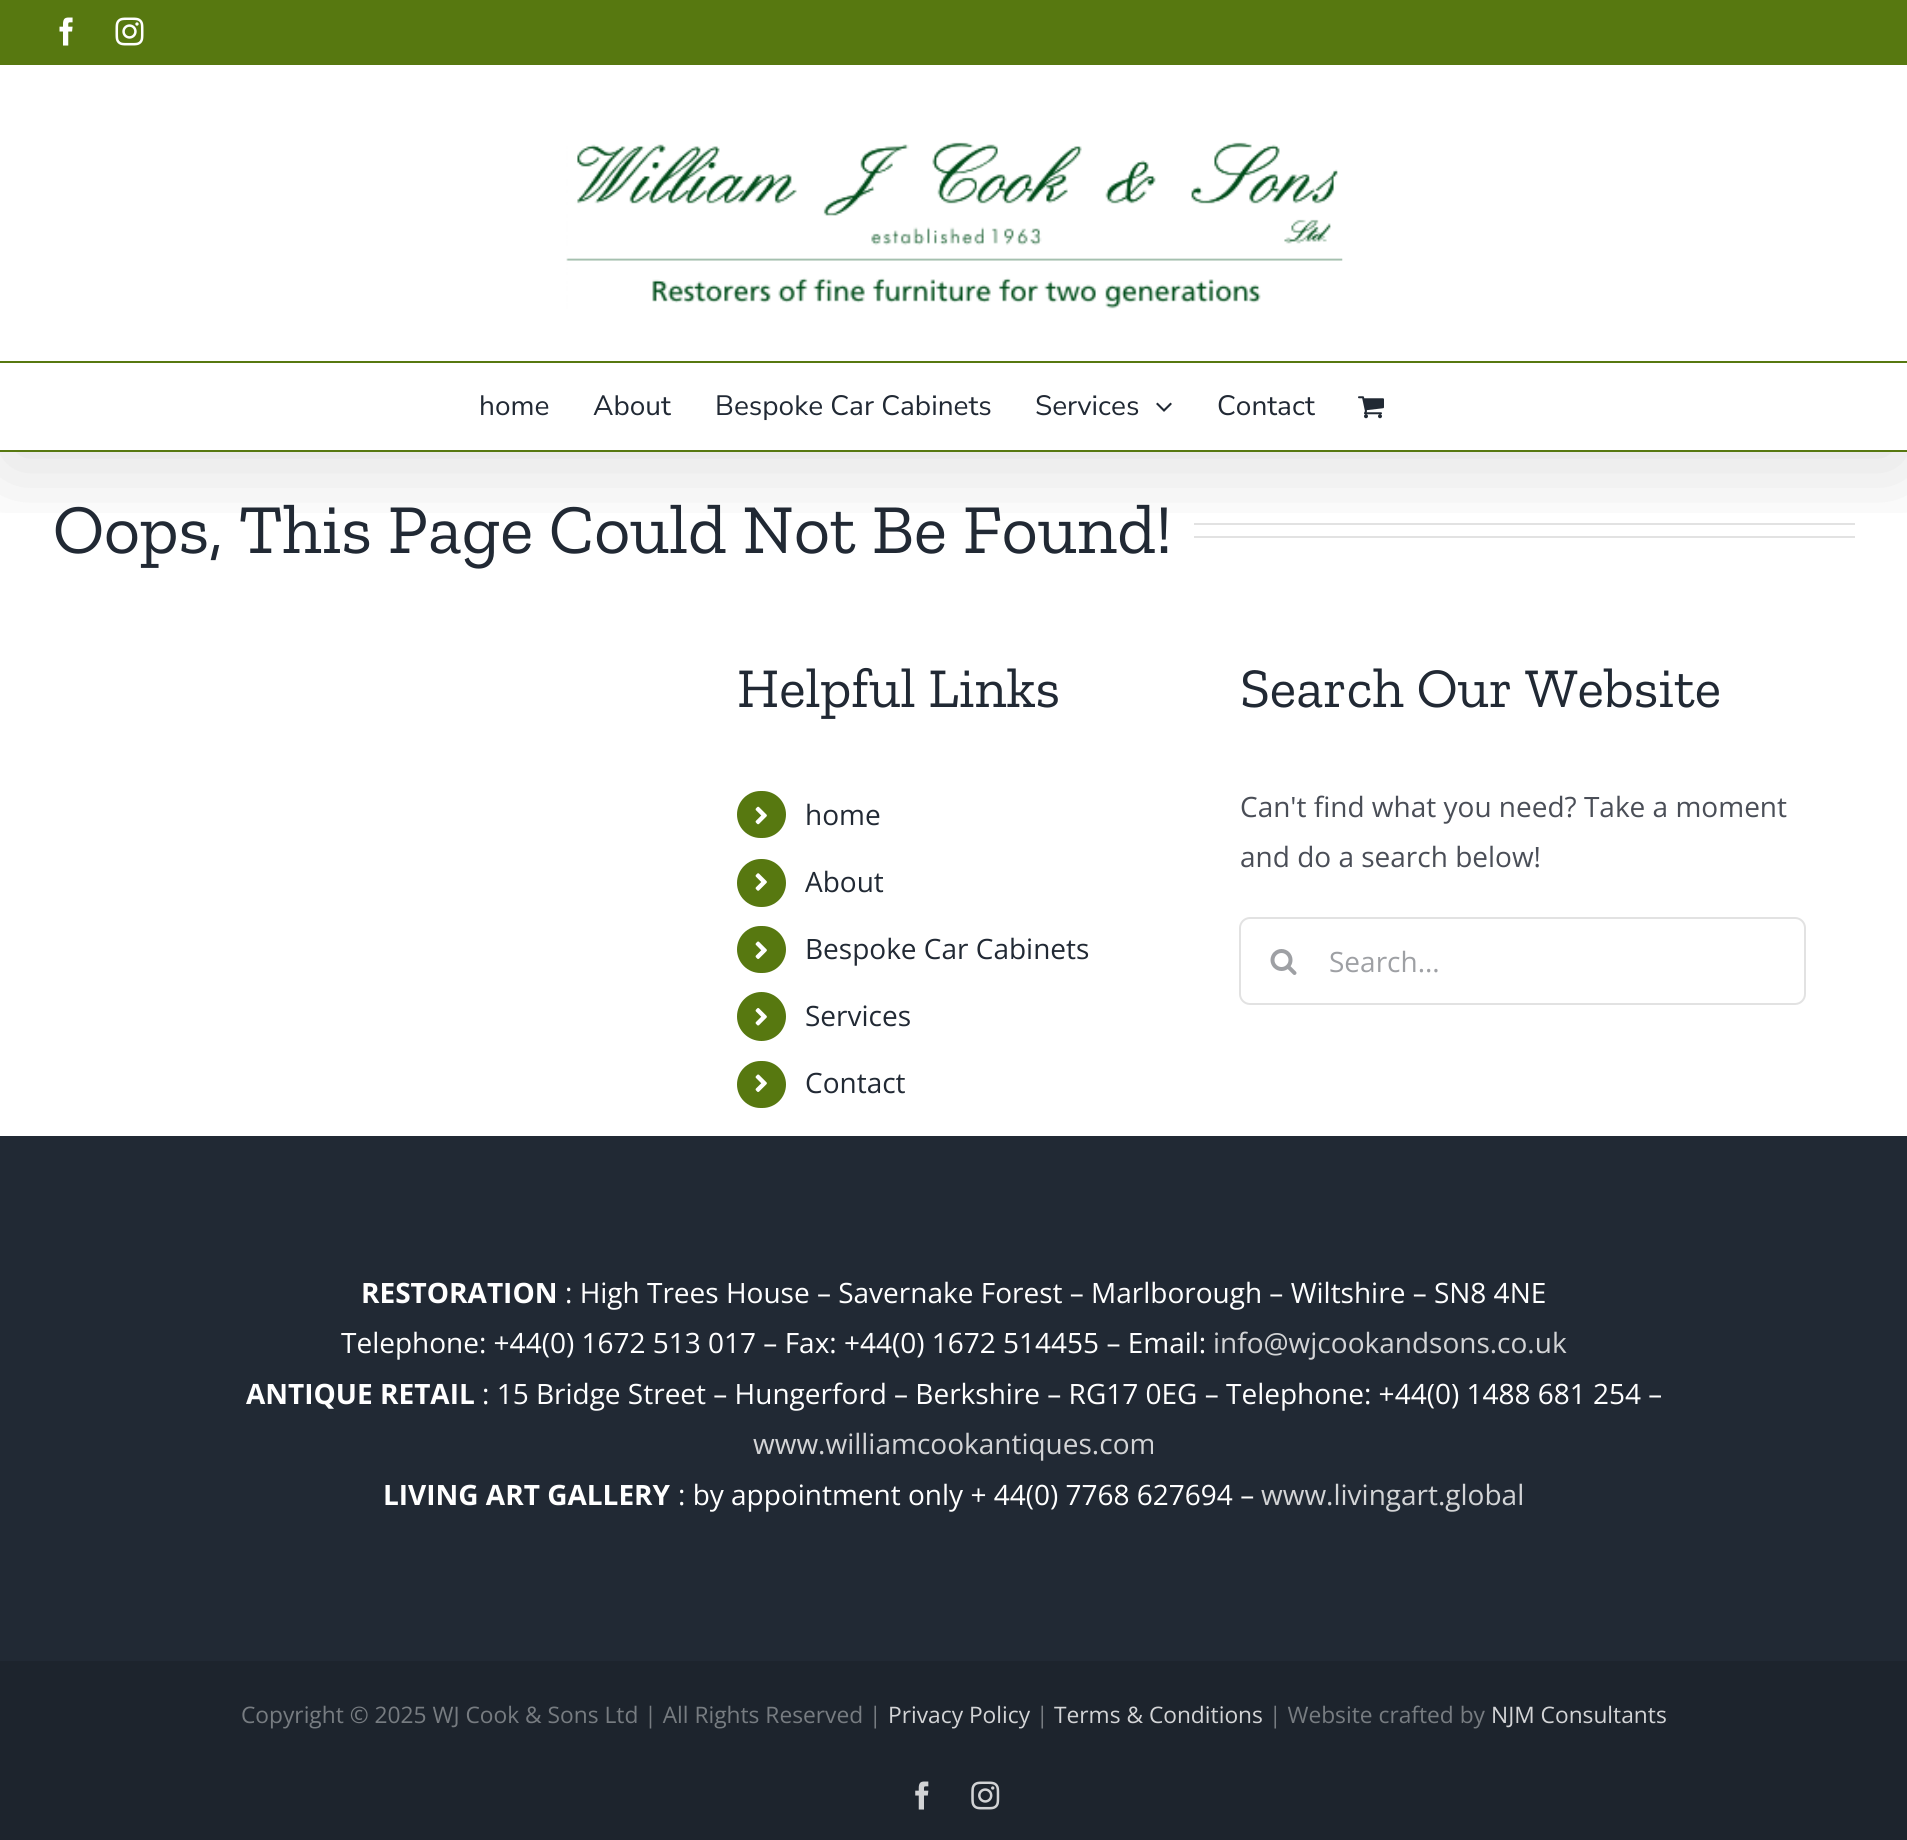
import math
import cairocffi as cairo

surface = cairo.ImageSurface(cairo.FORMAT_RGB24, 1907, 1840)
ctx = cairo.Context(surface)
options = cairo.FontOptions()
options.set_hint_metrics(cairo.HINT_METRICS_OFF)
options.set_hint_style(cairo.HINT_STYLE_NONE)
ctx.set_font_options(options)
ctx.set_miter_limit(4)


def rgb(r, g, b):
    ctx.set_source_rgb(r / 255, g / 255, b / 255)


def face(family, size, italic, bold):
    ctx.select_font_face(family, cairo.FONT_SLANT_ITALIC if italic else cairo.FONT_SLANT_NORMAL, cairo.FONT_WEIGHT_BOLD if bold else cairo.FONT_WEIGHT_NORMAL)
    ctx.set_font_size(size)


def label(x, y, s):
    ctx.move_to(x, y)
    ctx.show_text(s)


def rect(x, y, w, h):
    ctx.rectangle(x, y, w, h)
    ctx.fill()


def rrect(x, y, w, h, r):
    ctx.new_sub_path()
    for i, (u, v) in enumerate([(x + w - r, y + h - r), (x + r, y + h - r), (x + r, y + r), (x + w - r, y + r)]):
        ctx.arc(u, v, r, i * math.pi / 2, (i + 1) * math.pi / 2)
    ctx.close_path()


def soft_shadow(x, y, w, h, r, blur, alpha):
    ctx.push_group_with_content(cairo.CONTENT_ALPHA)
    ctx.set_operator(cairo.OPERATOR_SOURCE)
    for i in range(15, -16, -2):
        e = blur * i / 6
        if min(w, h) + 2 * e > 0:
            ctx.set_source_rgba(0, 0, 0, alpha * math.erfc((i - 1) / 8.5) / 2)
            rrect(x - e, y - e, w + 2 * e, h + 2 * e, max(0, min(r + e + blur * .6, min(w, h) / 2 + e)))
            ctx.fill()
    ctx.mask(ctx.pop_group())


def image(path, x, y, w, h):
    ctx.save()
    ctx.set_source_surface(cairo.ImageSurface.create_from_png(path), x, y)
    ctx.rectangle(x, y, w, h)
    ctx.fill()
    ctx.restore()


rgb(255, 255, 255)
ctx.paint()
rgb(226, 226, 226)
rect(1194, 523, 661, 2)
rect(1194, 536, 661, 2)
ctx.save()
ctx.rectangle(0, 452, 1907, 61)
ctx.clip()
rgb(0, 0, 0)
soft_shadow(4, 19, 1900, 447, 0, 44, 0.14)
ctx.restore()
rgb(87, 120, 16)
rect(0, 0, 1907, 65)
image('image0.png', 59, 17, 14, 29)
image('image1.png', 115, 17, 29, 29)
rect(0, 361, 1907, 2)
image('image2.png', 566, 142, 777, 167)
rect(0, 450, 1907, 2)
face('Nunito Sans ExtraLight', 28, 0, 0)
rgb(33, 41, 52)
label(479, 415, 'home')
label(593, 415, 'About')
label(715, 415, 'Bespoke Car Cabinets')
label(1035, 415, 'Services')
image('image3.png', 1156, 402, 16, 10)
label(1217, 415, 'Contact')
image('image4.png', 1358, 396, 26, 23)
face('Zilla Slab', 70, 0, 0)
label(53, 553, 'Oops, This Page Could Not Be Found!')
face('Zilla Slab', 56, 0, 0)
label(737, 707, 'Helpful Links')
rgb(87, 120, 16)
rrect(737, 791, 49, 47, 23.5)
ctx.fill()
image('image5.png', 755, 806, 12, 19)
face('Open Sans', 28, 0, 0)
rgb(33, 41, 52)
label(805, 825, 'home')
rgb(87, 120, 16)
rrect(737, 859, 49, 48, 24)
ctx.fill()
image('image6.png', 755, 873, 12, 18)
rgb(33, 41, 52)
label(805, 892, 'About')
rgb(87, 120, 16)
rrect(737, 926, 49, 47, 23.5)
ctx.fill()
image('image7.png', 755, 941, 12, 18)
rgb(33, 41, 52)
label(805, 959, 'Bespoke Car Cabinets')
rgb(87, 120, 16)
ctx.new_path()
ctx.arc(761.5, 1016.5, 24.5, 0, 2 * math.pi)
ctx.fill()
image('image8.png', 755, 1008, 12, 18)
rgb(33, 41, 52)
label(805, 1026, 'Services')
rgb(87, 120, 16)
rrect(737, 1061, 49, 47, 23.5)
ctx.fill()
image('image7.png', 755, 1074, 12, 18)
rgb(33, 41, 52)
label(805, 1093, 'Contact')
face('Zilla Slab', 56, 0, 0)
label(1240, 707, 'Search Our Website')
face('Open Sans', 28, 0, 0)
rgb(74, 78, 87)
label(1240, 817, 'Can\'t find what you need? Take a moment')
label(1240, 867, 'and do a search below!')
rrect(1240, 918, 565, 86, 10)
rgb(226, 226, 226)
ctx.stroke()
image('image9.png', 1270, 949, 27, 26)
rgb(158, 160, 164)
label(1329, 972, 'Search...')
rgb(33, 41, 52)
rect(0, 1136, 1907, 525)
face('Open Sans', 28, 0, 1)
rgb(255, 255, 255)
label(361, 1303, 'RESTORATION')
face('Open Sans', 28, 0, 0)
label(565, 1303, ': High Trees House – Savernake Forest – Marlborough – Wiltshire – SN8 4NE')
label(341, 1353, 'Telephone: +44(0) 1672 513 017 – Fax: +44(0) 1672 514455 – Email:')
rgb(211, 212, 214)
label(1213, 1353, 'info@wjcookandsons.co.uk')
face('Open Sans', 28, 0, 1)
rgb(255, 255, 255)
label(246, 1404, 'ANTIQUE RETAIL')
face('Open Sans', 28, 0, 0)
label(482, 1404, ': 15 Bridge Street – Hungerford – Berkshire – RG17 0EG – Telephone: +44(0) 1488 681 254 –')
rgb(211, 212, 214)
label(753, 1454, 'www.williamcookantiques.com')
face('Open Sans', 28, 0, 1)
rgb(255, 255, 255)
label(383, 1505, 'LIVING ART GALLERY')
face('Open Sans', 28, 0, 0)
label(678, 1505, ': by appointment only + 44(0) 7768 627694 –')
rgb(211, 212, 214)
label(1261, 1505, 'www.livingart.global')
rgb(29, 36, 45)
rect(0, 1661, 1907, 179)
face('Open Sans', 22.75, 0, 0)
rgb(119, 124, 129)
label(241, 1723, 'Copyright © 2025 WJ Cook & Sons Ltd | All Rights Reserved |')
rgb(211, 212, 214)
label(888, 1723, 'Privacy Policy')
rgb(119, 124, 129)
label(1036, 1723, '|')
rgb(211, 212, 214)
label(1054, 1723, 'Terms & Conditions')
rgb(119, 124, 129)
label(1269, 1723, '| Website crafted by')
rgb(211, 212, 214)
label(1491, 1723, 'NJM Consultants')
image('image10.png', 915, 1781, 14, 29)
image('image11.png', 971, 1781, 29, 29)
surface.write_to_png('render.png')
